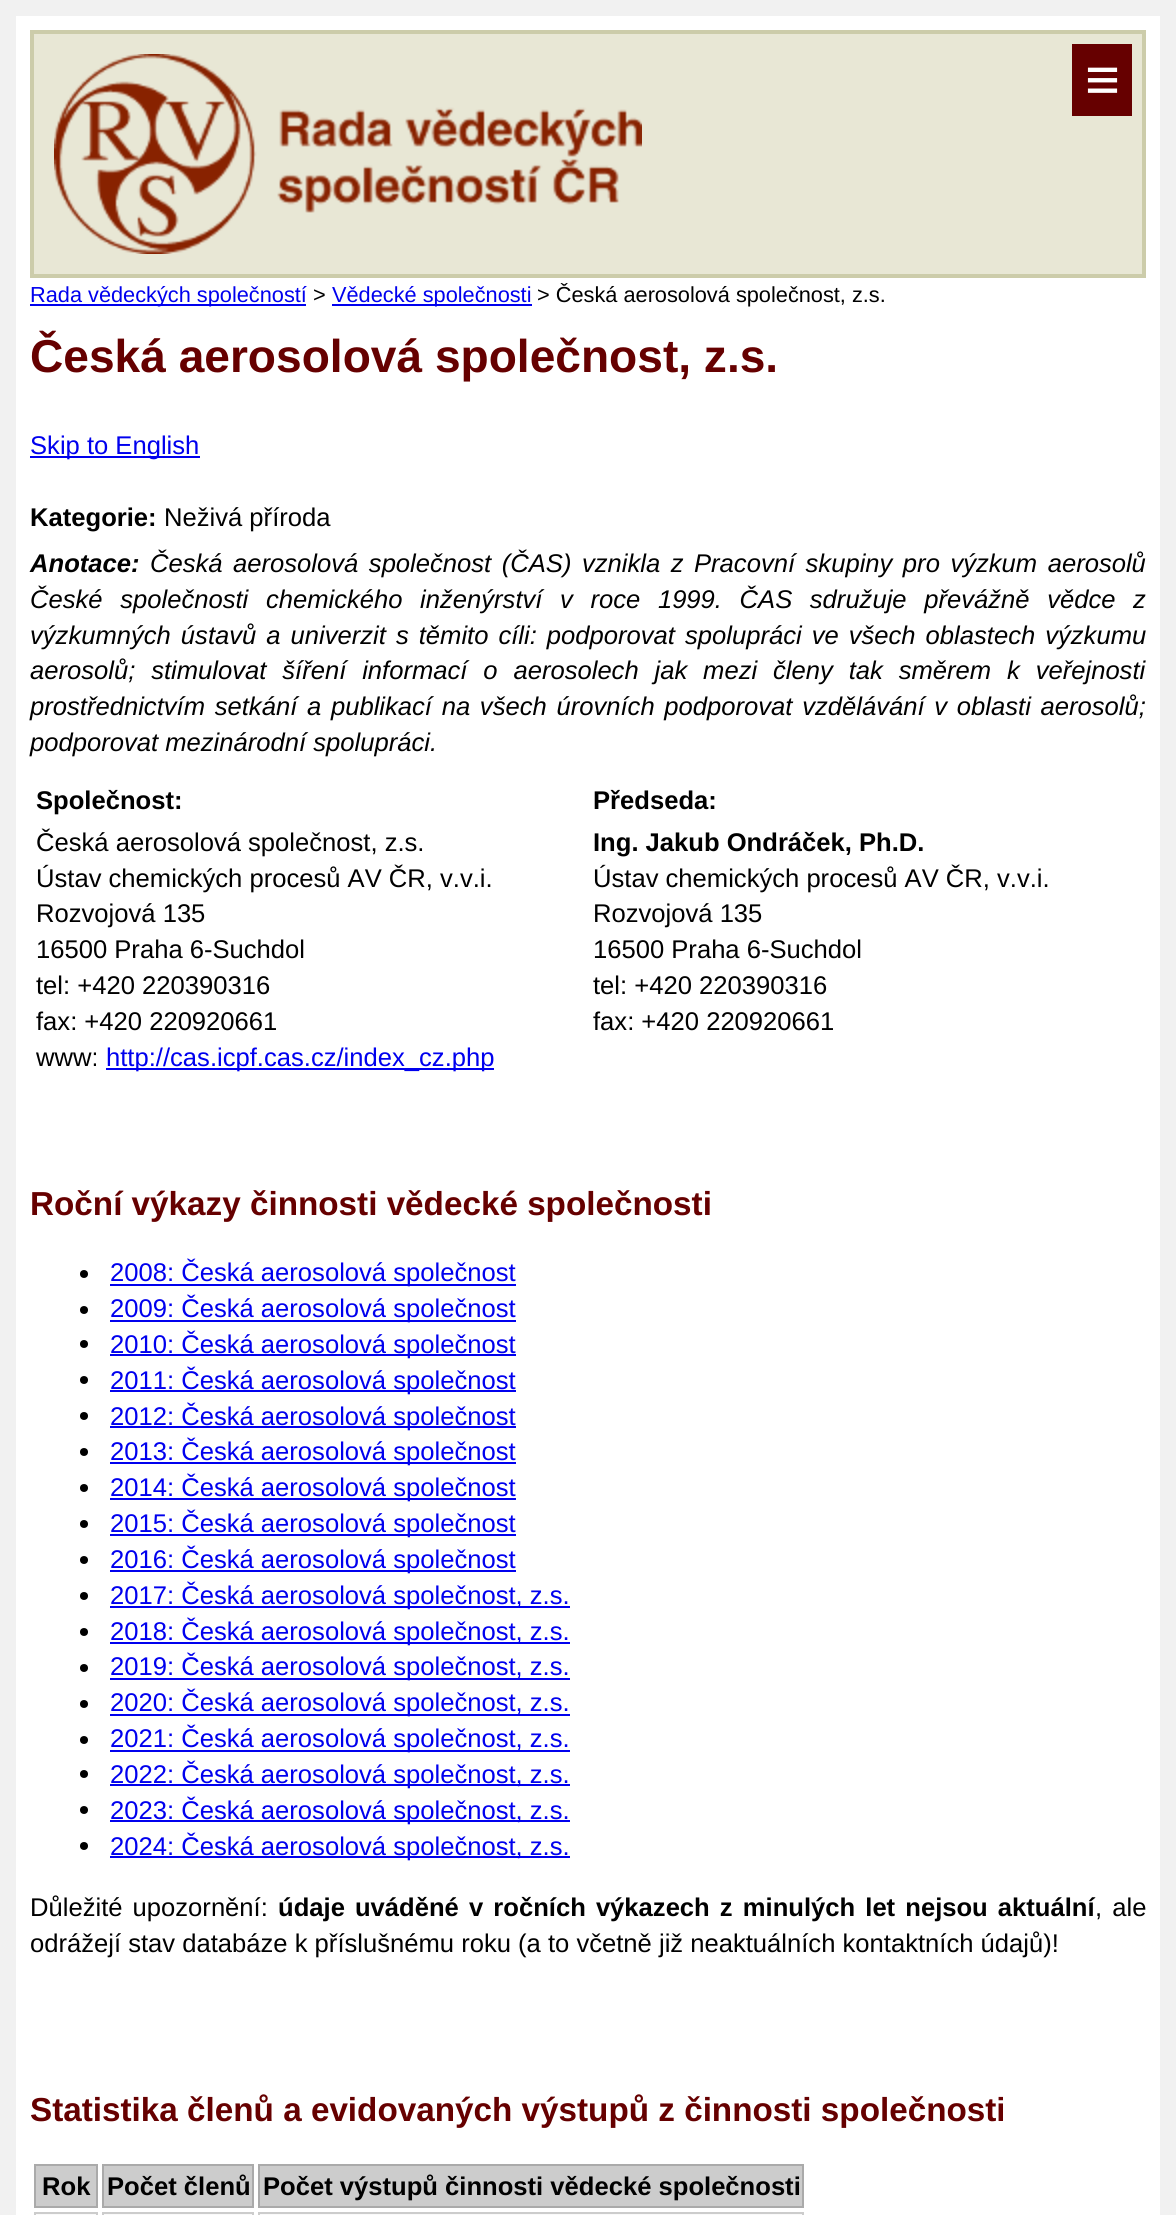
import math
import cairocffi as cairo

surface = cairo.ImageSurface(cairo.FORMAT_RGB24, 1176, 2215)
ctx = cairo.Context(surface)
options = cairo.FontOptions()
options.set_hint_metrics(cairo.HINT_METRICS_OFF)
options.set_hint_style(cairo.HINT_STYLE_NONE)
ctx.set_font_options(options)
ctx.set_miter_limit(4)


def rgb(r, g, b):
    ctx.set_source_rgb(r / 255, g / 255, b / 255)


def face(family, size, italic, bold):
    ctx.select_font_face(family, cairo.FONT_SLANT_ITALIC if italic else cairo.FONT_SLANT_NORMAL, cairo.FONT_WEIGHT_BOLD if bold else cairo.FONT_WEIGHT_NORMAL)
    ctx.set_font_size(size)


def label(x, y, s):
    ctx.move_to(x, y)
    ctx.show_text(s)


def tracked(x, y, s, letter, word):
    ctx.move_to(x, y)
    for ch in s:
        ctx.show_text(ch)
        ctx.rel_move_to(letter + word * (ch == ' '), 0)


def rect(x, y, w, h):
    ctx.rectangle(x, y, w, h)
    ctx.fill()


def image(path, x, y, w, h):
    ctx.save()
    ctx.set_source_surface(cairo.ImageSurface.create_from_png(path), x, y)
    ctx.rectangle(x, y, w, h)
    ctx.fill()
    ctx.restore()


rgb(241, 241, 241)
ctx.paint()
rgb(255, 255, 255)
rect(16, 16, 1144, 2199)
rgb(232, 231, 213)
ctx.rectangle(32, 32, 1112, 244)
ctx.fill_preserve()
rgb(204, 204, 170)
ctx.set_line_width(4)
ctx.stroke()
image('image0.png', 54, 54, 588, 200)
rgb(102, 0, 0)
rect(1072, 44, 60, 72)
face('Liberation Sans', 60, 0, 0)
rgb(255, 255, 255)
label(1085, 100, '≡')
rgb(0, 0, 238)
rect(30, 304, 276, 2)
face('Liberation Sans', 21.75, 0, 0)
label(30, 302, 'Rada vědeckých společností')
rgb(0, 0, 0)
label(313, 302, '>')
rgb(0, 0, 238)
rect(332, 304, 200, 2)
label(332, 302, 'Vědecké společnosti')
rgb(0, 0, 0)
label(537, 302, '> Česká aerosolová společnost, z.s.')
face('Liberation Sans', 46.1, 0, 1)
rgb(102, 0, 0)
label(30, 372, 'Česká aerosolová společnost, z.s.')
rgb(0, 0, 238)
rect(30, 456, 170, 2)
face('Liberation Sans', 25.6, 0, 0)
label(30, 454, 'Skip to English')
face('Liberation Sans', 25.6, 0, 1)
rgb(0, 0, 0)
label(30, 526, 'Kategorie:')
face('Liberation Sans', 25.6, 0, 0)
label(164, 526, 'Neživá příroda')
face('Liberation Sans', 25.6, 1, 1)
label(30, 572, 'Anotace:')
face('Liberation Sans', 25.6, 1, 0)
tracked(150, 572, 'Česká aerosolová společnost (ČAS) vznikla z Pracovní skupiny pro výzkum aerosolů', 0, 3.4)
tracked(30, 608, 'České společnosti chemického inženýrství v roce 1999. ČAS sdružuje převážně vědce z', 0, 10.5)
tracked(30, 644, 'výzkumných ústavů a univerzit s těmito cíli: podporovat spolupráci ve všech oblastech výzkumu', 0, 2.9)
tracked(30, 679, 'aerosolů; stimulovat šíření informací o aerosolech jak mezi členy tak směrem k veřejnosti', 0, 8.75)
tracked(30, 715, 'prostřednictvím setkání a publikací na všech úrovních podporovat vzdělávání v oblasti aerosolů;', 0, 2.6)
label(30, 751, 'podporovat mezinárodní spolupráci.')
face('Liberation Sans', 25.6, 0, 1)
label(36, 809, 'Společnost:')
face('Liberation Sans', 25.6, 0, 0)
label(36, 851, 'Česká aerosolová společnost, z.s.')
label(36, 887, 'Ústav chemických procesů AV ČR, v.v.i.')
label(36, 922, 'Rozvojová 135')
label(36, 958, '16500 Praha 6-Suchdol')
label(36, 994, 'tel: +420 220390316')
label(36, 1030, 'fax: +420 220920661')
label(36, 1066, 'www:')
rgb(0, 0, 238)
rect(106, 1068, 388, 2)
label(106, 1066, 'http://cas.icpf.cas.cz/index_cz.php')
face('Liberation Sans', 25.6, 0, 1)
rgb(0, 0, 0)
label(593, 809, 'Předseda:')
label(593, 851, 'Ing. Jakub Ondráček, Ph.D.')
face('Liberation Sans', 25.6, 0, 0)
label(593, 887, 'Ústav chemických procesů AV ČR, v.v.i.')
label(593, 922, 'Rozvojová 135')
label(593, 958, '16500 Praha 6-Suchdol')
label(593, 994, 'tel: +420 220390316')
label(593, 1030, 'fax: +420 220920661')
face('Liberation Sans', 33.25, 0, 1)
rgb(102, 0, 0)
label(30, 1215, 'Roční výkazy činnosti vědecké společnosti')
rgb(0, 0, 0)
ctx.new_path()
ctx.arc(84, 1274, 4, 0, 2 * math.pi)
ctx.fill()
rgb(0, 0, 238)
rect(110, 1284, 406, 2)
face('Liberation Sans', 25.6, 0, 0)
label(110, 1281, '2008: Česká aerosolová společnost')
rgb(0, 0, 0)
ctx.new_path()
ctx.arc(84, 1310, 4, 0, 2 * math.pi)
ctx.fill()
rgb(0, 0, 238)
rect(110, 1320, 406, 2)
label(110, 1317, '2009: Česká aerosolová společnost')
rgb(0, 0, 0)
ctx.new_path()
ctx.arc(84, 1344, 4, 0, 2 * math.pi)
ctx.fill()
rgb(0, 0, 238)
rect(110, 1354, 406, 2)
label(110, 1353, '2010: Česká aerosolová společnost')
rgb(0, 0, 0)
ctx.new_path()
ctx.arc(84, 1380, 4, 0, 2 * math.pi)
ctx.fill()
rgb(0, 0, 238)
rect(110, 1390, 406, 2)
label(110, 1389, '2011: Česká aerosolová společnost')
rgb(0, 0, 0)
ctx.new_path()
ctx.arc(84, 1416, 4, 0, 2 * math.pi)
ctx.fill()
rgb(0, 0, 238)
rect(110, 1426, 406, 2)
label(110, 1425, '2012: Česká aerosolová společnost')
rgb(0, 0, 0)
ctx.new_path()
ctx.arc(84, 1452, 4, 0, 2 * math.pi)
ctx.fill()
rgb(0, 0, 238)
rect(110, 1462, 406, 2)
label(110, 1460, '2013: Česká aerosolová společnost')
rgb(0, 0, 0)
ctx.new_path()
ctx.arc(84, 1488, 4, 0, 2 * math.pi)
ctx.fill()
rgb(0, 0, 238)
rect(110, 1498, 406, 2)
label(110, 1496, '2014: Česká aerosolová společnost')
rgb(0, 0, 0)
ctx.new_path()
ctx.arc(84, 1524, 4, 0, 2 * math.pi)
ctx.fill()
rgb(0, 0, 238)
rect(110, 1534, 406, 2)
label(110, 1532, '2015: Česká aerosolová společnost')
rgb(0, 0, 0)
ctx.new_path()
ctx.arc(84, 1560, 4, 0, 2 * math.pi)
ctx.fill()
rgb(0, 0, 238)
rect(110, 1570, 406, 2)
label(110, 1568, '2016: Česká aerosolová společnost')
rgb(0, 0, 0)
ctx.new_path()
ctx.arc(84, 1596, 4, 0, 2 * math.pi)
ctx.fill()
rgb(0, 0, 238)
rect(110, 1606, 460, 2)
label(110, 1604, '2017: Česká aerosolová společnost, z.s.')
rgb(0, 0, 0)
ctx.new_path()
ctx.arc(84, 1632, 4, 0, 2 * math.pi)
ctx.fill()
rgb(0, 0, 238)
rect(110, 1642, 460, 2)
label(110, 1640, '2018: Česká aerosolová společnost, z.s.')
rgb(0, 0, 0)
ctx.new_path()
ctx.arc(84, 1668, 4, 0, 2 * math.pi)
ctx.fill()
rgb(0, 0, 238)
rect(110, 1678, 460, 2)
label(110, 1675, '2019: Česká aerosolová společnost, z.s.')
rgb(0, 0, 0)
ctx.new_path()
ctx.arc(84, 1704, 4, 0, 2 * math.pi)
ctx.fill()
rgb(0, 0, 238)
rect(110, 1714, 460, 2)
label(110, 1711, '2020: Česká aerosolová společnost, z.s.')
rgb(0, 0, 0)
ctx.new_path()
ctx.arc(84, 1740, 4, 0, 2 * math.pi)
ctx.fill()
rgb(0, 0, 238)
rect(110, 1750, 460, 2)
label(110, 1747, '2021: Česká aerosolová společnost, z.s.')
rgb(0, 0, 0)
ctx.new_path()
ctx.arc(84, 1774, 4, 0, 2 * math.pi)
ctx.fill()
rgb(0, 0, 238)
rect(110, 1784, 460, 2)
label(110, 1783, '2022: Česká aerosolová společnost, z.s.')
rgb(0, 0, 0)
ctx.new_path()
ctx.arc(84, 1810, 4, 0, 2 * math.pi)
ctx.fill()
rgb(0, 0, 238)
rect(110, 1820, 460, 2)
label(110, 1819, '2023: Česká aerosolová společnost, z.s.')
rgb(0, 0, 0)
ctx.new_path()
ctx.arc(84, 1846, 4, 0, 2 * math.pi)
ctx.fill()
rgb(0, 0, 238)
rect(110, 1856, 460, 2)
label(110, 1855, '2024: Česká aerosolová společnost, z.s.')
rgb(0, 0, 0)
tracked(30, 1916, 'Důležité upozornění:', 0, 3)
face('Liberation Sans', 25.6, 0, 1)
tracked(278, 1916, 'údaje uváděné v ročních výkazech z minulých let nejsou aktuální', 0, 3)
face('Liberation Sans', 25.6, 0, 0)
tracked(1095, 1916, ', ale', 0, 3)
label(30, 1952, 'odrážejí stav databáze k příslušnému roku (a to včetně již neaktuálních kontaktních údajů)!')
face('Liberation Sans', 33.25, 0, 1)
rgb(102, 0, 0)
label(30, 2121, 'Statistika členů a evidovaných výstupů z činnosti společnosti')
rgb(204, 204, 204)
ctx.rectangle(35, 2165, 62, 42)
ctx.fill_preserve()
rgb(170, 170, 170)
ctx.set_line_width(2)
ctx.stroke()
face('Liberation Sans', 25.6, 0, 1)
rgb(0, 0, 0)
label(42, 2195, 'Rok')
rgb(204, 204, 204)
ctx.rectangle(103, 2165, 150, 42)
ctx.fill_preserve()
rgb(170, 170, 170)
ctx.stroke()
rgb(0, 0, 0)
label(107, 2195, 'Počet členů')
rgb(204, 204, 204)
ctx.rectangle(259, 2165, 544, 42)
ctx.fill_preserve()
rgb(170, 170, 170)
ctx.stroke()
rgb(0, 0, 0)
label(263, 2195, 'Počet výstupů činnosti vědecké společnosti')
rgb(250, 250, 250)
ctx.rectangle(35, 2213, 62, 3)
ctx.fill_preserve()
rgb(204, 204, 204)
ctx.stroke()
rgb(250, 250, 250)
ctx.rectangle(103, 2213, 150, 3)
ctx.fill_preserve()
rgb(204, 204, 204)
ctx.stroke()
rgb(250, 250, 250)
ctx.rectangle(259, 2213, 544, 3)
ctx.fill_preserve()
rgb(204, 204, 204)
ctx.stroke()
surface.write_to_png('render.png')
